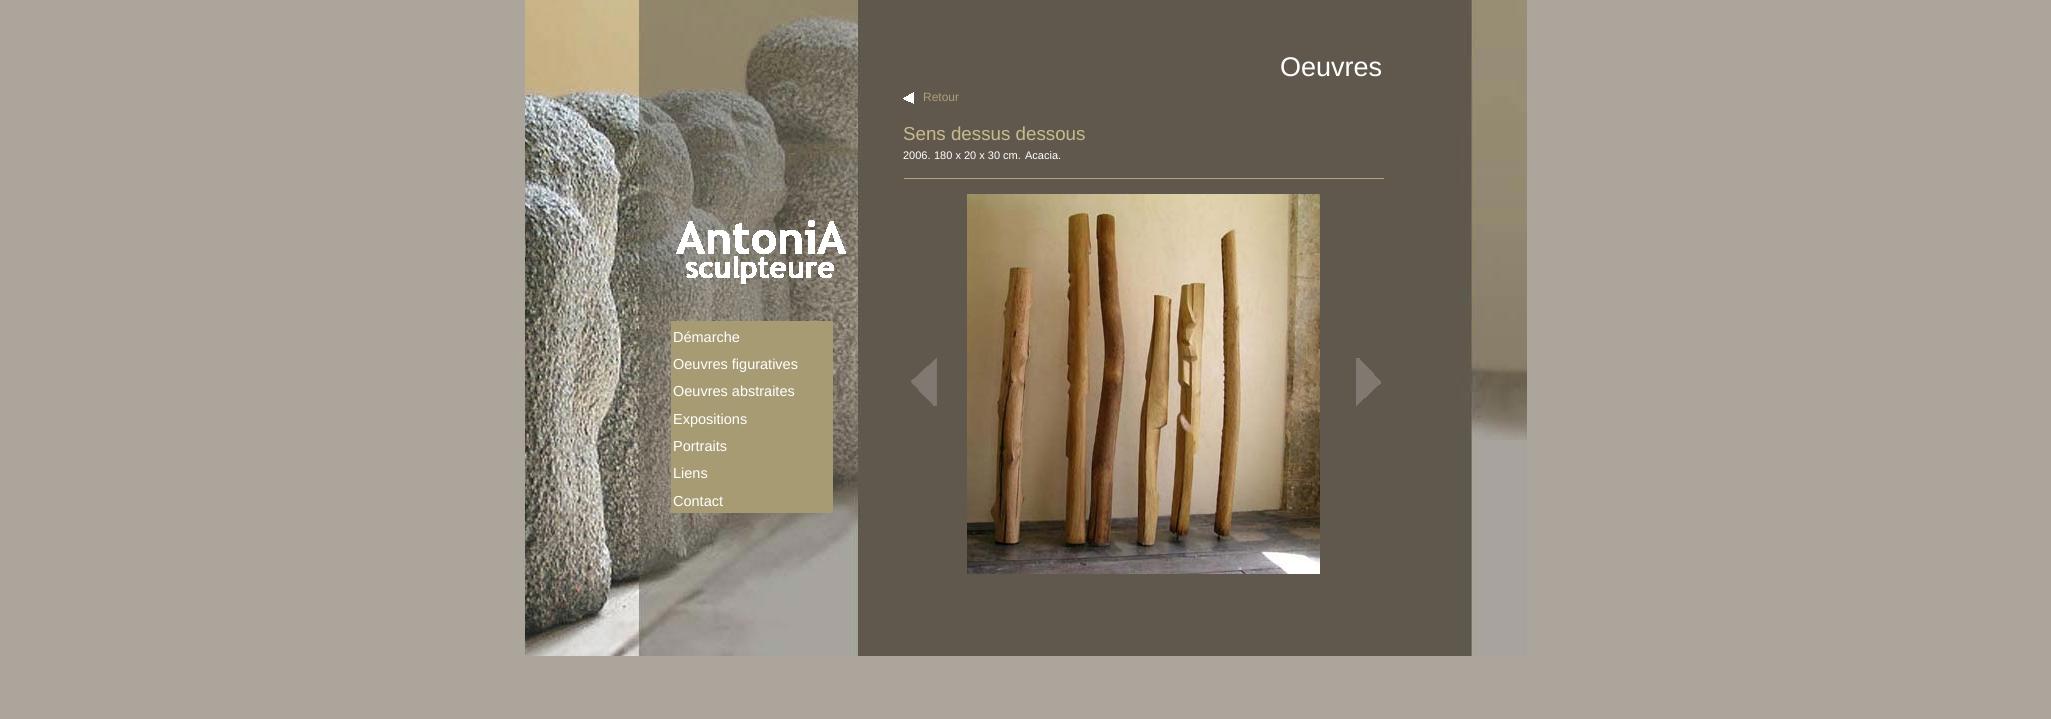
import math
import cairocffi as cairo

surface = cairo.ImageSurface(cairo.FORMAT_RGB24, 2051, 719)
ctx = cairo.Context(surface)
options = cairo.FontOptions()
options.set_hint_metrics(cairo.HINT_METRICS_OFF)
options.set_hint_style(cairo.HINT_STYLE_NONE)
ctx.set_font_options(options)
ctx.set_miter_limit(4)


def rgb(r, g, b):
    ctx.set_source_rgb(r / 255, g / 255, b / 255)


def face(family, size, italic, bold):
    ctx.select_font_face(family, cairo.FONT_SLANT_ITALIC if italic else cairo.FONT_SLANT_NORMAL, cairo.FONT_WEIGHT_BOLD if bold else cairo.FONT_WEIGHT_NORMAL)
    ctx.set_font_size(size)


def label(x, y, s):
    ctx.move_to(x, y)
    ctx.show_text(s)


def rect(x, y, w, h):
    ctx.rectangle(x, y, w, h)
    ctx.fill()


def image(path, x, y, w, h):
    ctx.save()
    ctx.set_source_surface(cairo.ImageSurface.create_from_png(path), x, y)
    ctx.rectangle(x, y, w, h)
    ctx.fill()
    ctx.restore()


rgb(172, 165, 155)
ctx.paint()
image('image0.png', 525, 0, 1002, 656)
face('Liberation Sans', 27, 0, 0)
rgb(255, 255, 255)
label(1280, 76, 'Oeuvres')
image('image1.png', 903, 92, 11, 12)
face('Liberation Sans', 12, 0, 0)
rgb(171, 159, 119)
label(923, 101, 'Retour')
face('Liberation Sans', 18.75, 0, 0)
rgb(199, 187, 139)
label(903, 140, 'Sens dessus dessous')
face('Liberation Sans', 11, 0, 0)
rgb(255, 255, 255)
label(903, 159, '2006.')
label(934, 159, '180 x 20 x 30 cm.')
label(1025, 159, 'Acacia.')
rgb(176, 164, 122)
rect(903, 178, 482, 1)
rgb(94, 89, 77)
rect(1384, 178, 1, 1)
rect(903, 178, 1, 1)
image('image2.png', 911, 358, 26, 48)
image('image3.png', 967, 194, 353, 380)
image('image4.png', 1356, 358, 25, 48)
image('image5.png', 676, 220, 170, 64)
rgb(166, 155, 114)
rect(671, 321, 162, 192)
face('Liberation Sans', 14.5, 0, 0)
rgb(255, 255, 255)
label(673, 342, 'Démarche')
label(673, 369, 'Oeuvres figuratives')
label(673, 396, 'Oeuvres abstraites')
label(673, 424, 'Expositions')
label(673, 451, 'Portraits')
label(673, 478, 'Liens')
label(673, 506, 'Contact')
surface.write_to_png('render.png')
